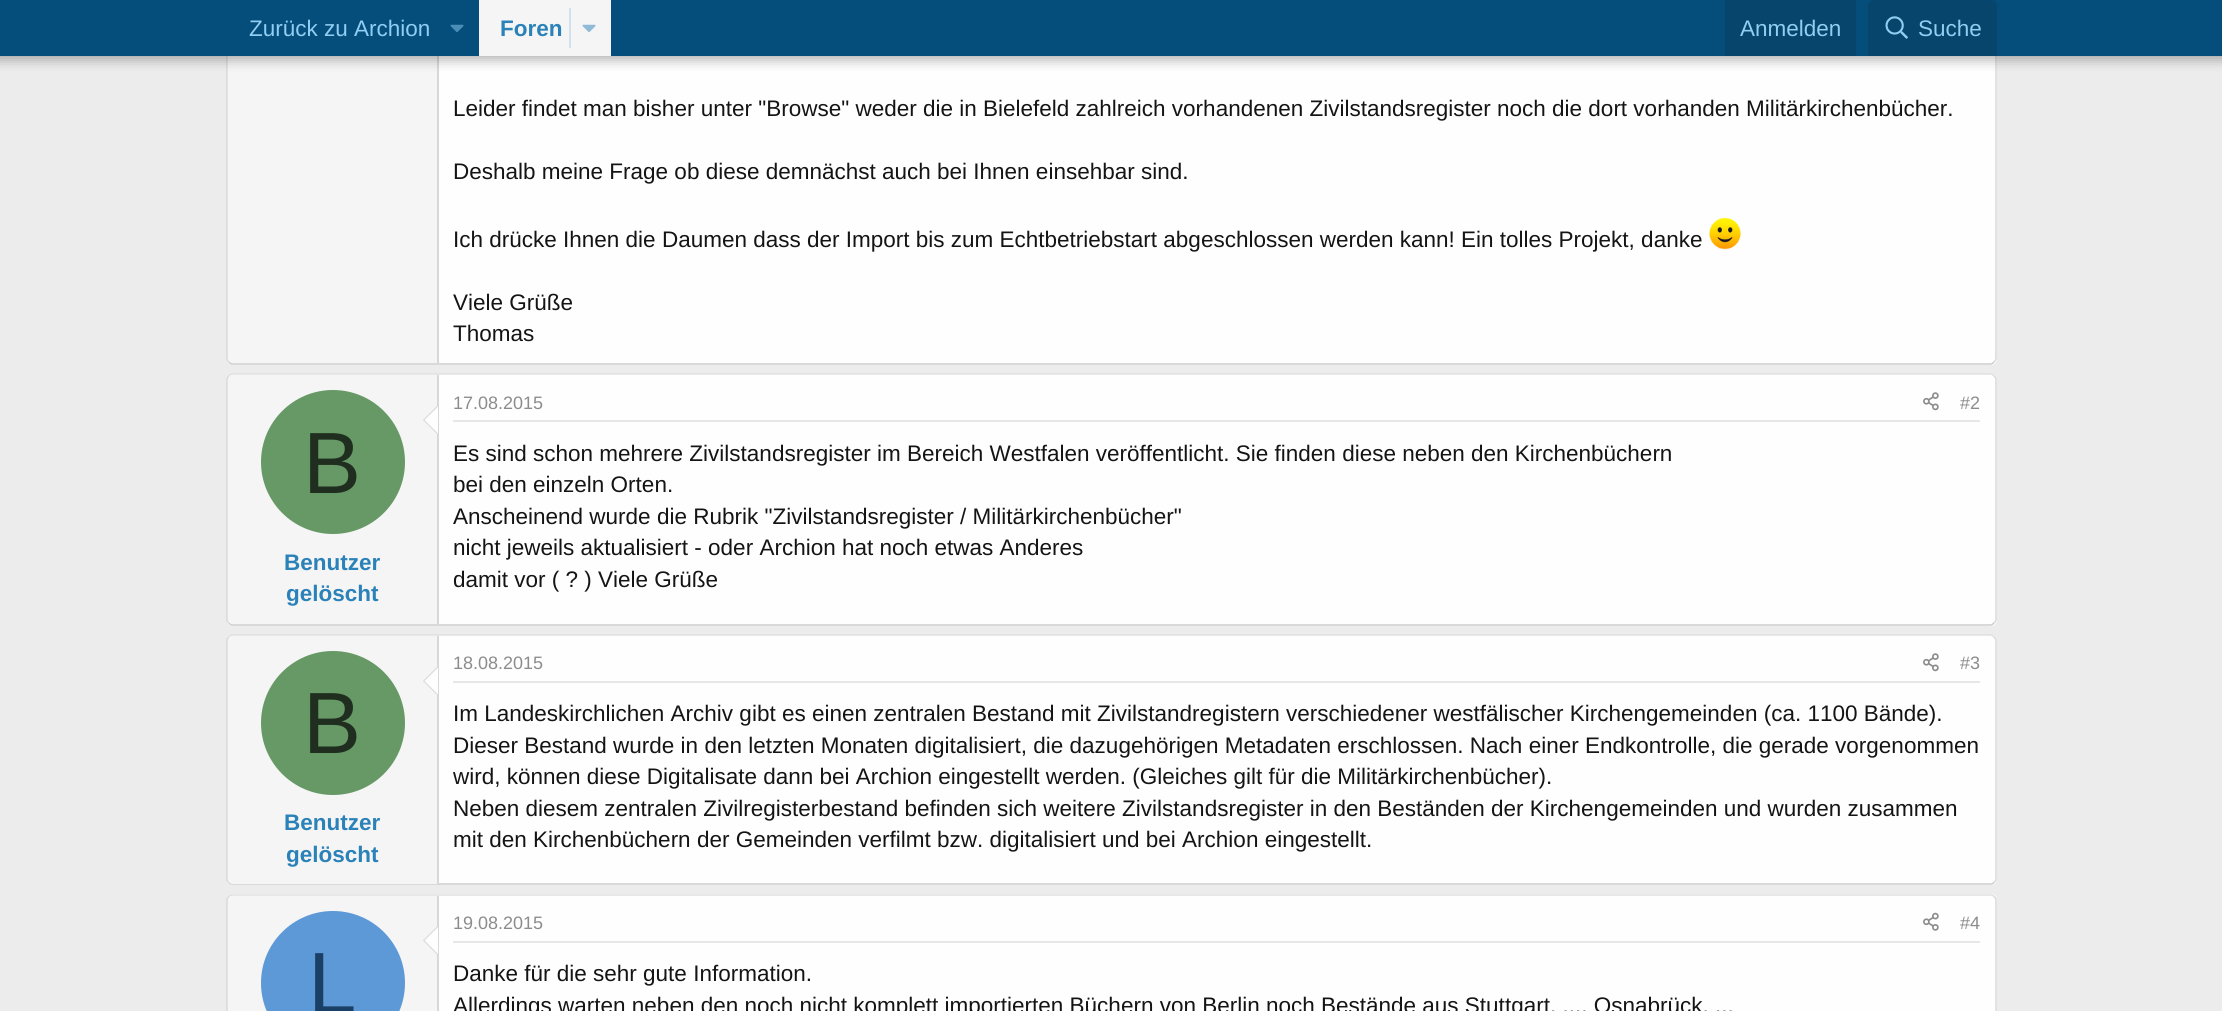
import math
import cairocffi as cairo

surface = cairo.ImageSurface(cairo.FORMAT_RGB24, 2222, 1011)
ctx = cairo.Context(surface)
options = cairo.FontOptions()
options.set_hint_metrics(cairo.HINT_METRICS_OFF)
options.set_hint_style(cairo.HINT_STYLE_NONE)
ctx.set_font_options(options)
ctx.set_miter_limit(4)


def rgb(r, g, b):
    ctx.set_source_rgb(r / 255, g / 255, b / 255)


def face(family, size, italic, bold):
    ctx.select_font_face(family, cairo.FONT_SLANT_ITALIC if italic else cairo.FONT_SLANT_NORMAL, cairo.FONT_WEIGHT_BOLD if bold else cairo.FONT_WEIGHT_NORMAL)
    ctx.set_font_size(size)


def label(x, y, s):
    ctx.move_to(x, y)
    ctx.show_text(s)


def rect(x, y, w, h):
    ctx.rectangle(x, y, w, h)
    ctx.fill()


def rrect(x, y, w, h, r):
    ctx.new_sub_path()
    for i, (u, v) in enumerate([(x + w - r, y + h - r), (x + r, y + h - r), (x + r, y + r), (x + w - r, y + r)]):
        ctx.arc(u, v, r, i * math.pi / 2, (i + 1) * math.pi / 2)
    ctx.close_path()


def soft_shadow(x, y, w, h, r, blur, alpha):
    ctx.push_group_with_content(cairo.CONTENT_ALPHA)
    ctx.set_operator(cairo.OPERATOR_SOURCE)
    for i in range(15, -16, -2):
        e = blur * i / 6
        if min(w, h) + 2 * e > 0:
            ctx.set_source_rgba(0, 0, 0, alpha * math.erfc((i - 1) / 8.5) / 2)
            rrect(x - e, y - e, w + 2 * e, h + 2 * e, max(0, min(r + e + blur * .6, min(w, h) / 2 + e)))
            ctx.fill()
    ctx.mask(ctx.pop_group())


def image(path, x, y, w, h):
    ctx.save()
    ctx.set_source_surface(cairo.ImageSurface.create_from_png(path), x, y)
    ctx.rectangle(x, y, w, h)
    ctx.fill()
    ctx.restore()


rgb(236, 236, 236)
ctx.paint()
rgb(254, 254, 254)
rrect(227, -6, 1770, 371, 6)
ctx.fill()
ctx.new_path()
ctx.move_to(1994, -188)
ctx.curve_to(1995, -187, 1996, -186, 1996, -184.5)
ctx.line_to(1996, 358.5)
ctx.curve_to(1996, 360, 1995, 361, 1994, 362)
rgb(216, 216, 216)
ctx.set_line_width(1.5)
ctx.stroke()
ctx.new_path()
ctx.move_to(1994, 362)
ctx.curve_to(1993, 363, 1992, 364, 1990.5, 364)
ctx.line_to(232.5, 364)
ctx.curve_to(231, 364, 230, 363, 229, 362)
rgb(203, 203, 203)
ctx.stroke()
ctx.new_path()
ctx.move_to(229, 362)
ctx.curve_to(228, 361, 227, 360, 227, 358.5)
ctx.line_to(227, -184.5)
ctx.curve_to(227, -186, 228, -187, 229, -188)
rgb(216, 216, 216)
ctx.stroke()
rgb(245, 245, 245)
ctx.new_path()
ctx.move_to(233, -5)
ctx.line_to(438, -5)
ctx.line_to(438, 363)
ctx.line_to(233, 363)
ctx.curve_to(230, 363, 228, 361, 228, 358)
ctx.line_to(228, 0)
ctx.curve_to(228, -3, 230, -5, 233, -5)
ctx.close_path()
ctx.fill()
rgb(216, 216, 216)
rect(437, 56, 2, 307)
rgb(0, 0, 0)
soft_shadow(-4, -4, 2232, 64, 0, 6, 0.3)
rgb(5, 78, 123)
rect(0, 0, 2222, 56)
face('Liberation Sans', 22.5, 0, 0)
rgb(144, 206, 243)
label(249, 36, 'Zurück zu Archion')
image('image0.png', 450, 24, 14, 8)
rgb(245, 245, 245)
rect(479, 0, 132, 56)
face('Liberation Sans', 22.5, 0, 1)
rgb(43, 130, 184)
label(500, 36, 'Foren')
rgb(210, 225, 235)
rect(569, 8, 2, 40)
image('image1.png', 582, 24, 14, 9)
rgb(7, 69, 108)
rect(1725, 0, 131, 56)
face('Liberation Sans', 22.5, 0, 0)
rgb(144, 206, 243)
label(1740, 36, 'Anmelden')
rgb(7, 69, 108)
ctx.new_path()
ctx.move_to(1874, 0)
ctx.line_to(1991, 0)
ctx.curve_to(1994.5, 0, 1997, 2.5, 1997, 6)
ctx.line_to(1997, 56)
ctx.line_to(1868, 56)
ctx.line_to(1868, 6)
ctx.curve_to(1868, 2.5, 1870.5, 0, 1874, 0)
ctx.close_path()
ctx.fill()
image('image2.png', 1885, 16, 23, 23)
rgb(144, 206, 243)
label(1918, 36, 'Suche')
rgb(20, 20, 20)
label(453, 116, 'Leider findet man bisher unter "Browse" weder die in Bielefeld zahlreich vorhandenen Zivilstandsregister noch die dort vorhanden Militärkirchenbücher.')
label(453, 179, 'Deshalb meine Frage ob diese demnächst auch bei Ihnen einsehbar sind.')
label(453, 247, 'Ich drücke Ihnen die Daumen dass der Import bis zum Echtbetriebstart abgeschlossen werden kann! Ein tolles Projekt, danke')
image('image3.png', 1709, 217, 32, 33)
label(453, 310, 'Viele Grüße')
label(453, 341, 'Thomas')
rgb(254, 254, 254)
rrect(227, 374, 1770, 252, 6)
ctx.fill()
ctx.new_path()
ctx.move_to(229, 376)
ctx.curve_to(230, 375, 231, 374, 232.5, 374)
ctx.line_to(1990.5, 374)
ctx.curve_to(1992, 374, 1993, 375, 1994, 376)
rgb(223, 223, 223)
ctx.stroke()
ctx.new_path()
ctx.move_to(1994, 376)
ctx.curve_to(1995, 377, 1996, 378, 1996, 379.5)
ctx.line_to(1996, 619.5)
ctx.curve_to(1996, 621, 1995, 622, 1994, 623)
rgb(216, 216, 216)
ctx.stroke()
ctx.new_path()
ctx.move_to(1994, 623)
ctx.curve_to(1993, 624, 1992, 625, 1990.5, 625)
ctx.line_to(232.5, 625)
ctx.curve_to(231, 625, 230, 624, 229, 623)
rgb(203, 203, 203)
ctx.stroke()
ctx.new_path()
ctx.move_to(229, 623)
ctx.curve_to(228, 622, 227, 621, 227, 619.5)
ctx.line_to(227, 379.5)
ctx.curve_to(227, 378, 228, 377, 229, 376)
rgb(216, 216, 216)
ctx.stroke()
rgb(245, 245, 245)
ctx.new_path()
ctx.move_to(233, 375)
ctx.line_to(438, 375)
ctx.line_to(438, 624)
ctx.line_to(233, 624)
ctx.curve_to(230, 624, 228, 622, 228, 619)
ctx.line_to(228, 380)
ctx.curve_to(228, 377, 230, 375, 233, 375)
ctx.close_path()
ctx.fill()
rgb(216, 216, 216)
rect(437, 375, 2, 249)
ctx.new_path()
ctx.move_to(438, 405)
ctx.line_to(438, 435)
ctx.line_to(423, 420)
ctx.close_path()
ctx.fill()
rgb(254, 254, 254)
ctx.new_path()
ctx.move_to(438, 406.5)
ctx.line_to(438, 433.5)
ctx.line_to(424.5, 420)
ctx.close_path()
ctx.fill()
rgb(102, 153, 102)
ctx.arc(333, 462, 72, 0, 2 * math.pi)
ctx.fill()
face('Liberation Sans', 87, 0, 0)
rgb(31, 46, 31)
label(303, 493, 'B')
face('Liberation Sans', 22.5, 0, 1)
rgb(43, 130, 184)
label(284, 570, 'Benutzer')
label(286, 601, 'gelöscht')
rgb(231, 231, 231)
rect(453, 420, 1527, 2)
face('Liberation Sans', 18, 0, 0)
rgb(140, 140, 140)
label(453, 409, '17.08.2015')
image('image4.png', 1923, 392, 16, 19)
label(1960, 409, '#2')
face('Liberation Sans', 22.5, 0, 0)
rgb(20, 20, 20)
label(453, 461, 'Es sind schon mehrere Zivilstandsregister im Bereich Westfalen veröffentlicht. Sie finden diese neben den Kirchenbüchern')
label(453, 492, 'bei den einzeln Orten.')
label(453, 524, 'Anscheinend wurde die Rubrik "Zivilstandsregister / Militärkirchenbücher"')
label(453, 555, 'nicht jeweils aktualisiert - oder Archion hat noch etwas Anderes')
label(453, 587, 'damit vor ( ? ) Viele Grüße')
rgb(254, 254, 254)
rrect(227, 635, 1770, 250, 6)
ctx.fill()
ctx.new_path()
ctx.move_to(229, 637)
ctx.curve_to(230, 636, 231, 635, 232.5, 635)
ctx.line_to(1990.5, 635)
ctx.curve_to(1992, 635, 1993, 636, 1994, 637)
rgb(223, 223, 223)
ctx.stroke()
ctx.new_path()
ctx.move_to(1994, 637)
ctx.curve_to(1995, 638, 1996, 639, 1996, 640.5)
ctx.line_to(1996, 879)
ctx.curve_to(1996, 880.5, 1995, 881.5, 1994, 882.5)
rgb(216, 216, 216)
ctx.stroke()
ctx.new_path()
ctx.move_to(1994, 882.5)
ctx.curve_to(1993, 883.5, 1992, 884, 1990.5, 884)
ctx.line_to(232.5, 884)
ctx.curve_to(231, 884, 230, 883.5, 229, 882.5)
rgb(203, 203, 203)
ctx.stroke()
ctx.new_path()
ctx.move_to(229, 882.5)
ctx.curve_to(228, 881.5, 227, 880.5, 227, 879)
ctx.line_to(227, 640.5)
ctx.curve_to(227, 639, 228, 638, 229, 637)
rgb(216, 216, 216)
ctx.stroke()
rgb(245, 245, 245)
ctx.new_path()
ctx.move_to(233, 636)
ctx.line_to(438, 636)
ctx.line_to(438, 884)
ctx.line_to(233, 884)
ctx.curve_to(230, 884, 228, 882, 228, 879)
ctx.line_to(228, 641)
ctx.curve_to(228, 638, 230, 636, 233, 636)
ctx.close_path()
ctx.fill()
rgb(216, 216, 216)
rect(437, 636, 2, 248)
ctx.new_path()
ctx.move_to(438, 666)
ctx.line_to(438, 696)
ctx.line_to(423, 681)
ctx.close_path()
ctx.fill()
rgb(254, 254, 254)
ctx.new_path()
ctx.move_to(438, 667.5)
ctx.line_to(438, 694.5)
ctx.line_to(424.5, 681)
ctx.close_path()
ctx.fill()
rgb(102, 153, 102)
ctx.arc(333, 723, 72, 0, 2 * math.pi)
ctx.fill()
face('Liberation Sans', 87, 0, 0)
rgb(31, 46, 31)
label(303, 753, 'B')
face('Liberation Sans', 22.5, 0, 1)
rgb(43, 130, 184)
label(284, 830, 'Benutzer')
label(286, 862, 'gelöscht')
rgb(231, 231, 231)
rect(453, 681, 1527, 2)
face('Liberation Sans', 18, 0, 0)
rgb(140, 140, 140)
label(453, 669, '18.08.2015')
image('image4.png', 1923, 653, 16, 19)
label(1960, 669, '#3')
face('Liberation Sans', 22.5, 0, 0)
rgb(20, 20, 20)
label(453, 721, 'Im Landeskirchlichen Archiv gibt es einen zentralen Bestand mit Zivilstandregistern verschiedener westfälischer Kirchengemeinden (ca. 1100 Bände).')
label(453, 753, 'Dieser Bestand wurde in den letzten Monaten digitalisiert, die dazugehörigen Metadaten erschlossen. Nach einer Endkontrolle, die gerade vorgenommen')
label(453, 784, 'wird, können diese Digitalisate dann bei Archion eingestellt werden. (Gleiches gilt für die Militärkirchenbücher).')
label(453, 816, 'Neben diesem zentralen Zivilregisterbestand befinden sich weitere Zivilstandsregister in den Beständen der Kirchengemeinden und wurden zusammen')
label(453, 847, 'mit den Kirchenbüchern der Gemeinden verfilmt bzw. digitalisiert und bei Archion eingestellt.')
rgb(254, 254, 254)
rrect(227, 894, 1770, 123, 6)
ctx.fill()
ctx.new_path()
ctx.move_to(229, 896.5)
ctx.curve_to(230, 895.5, 231, 895, 232.5, 895)
ctx.line_to(1990.5, 895)
ctx.curve_to(1992, 895, 1993, 895.5, 1994, 896.5)
rgb(223, 223, 223)
ctx.stroke()
ctx.new_path()
ctx.move_to(1994, 896.5)
ctx.curve_to(1995, 897.5, 1996, 898.5, 1996, 900)
ctx.line_to(1996, 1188)
ctx.curve_to(1996, 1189.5, 1995, 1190.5, 1994, 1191.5)
rgb(216, 216, 216)
ctx.stroke()
ctx.new_path()
ctx.move_to(229, 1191.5)
ctx.curve_to(228, 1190.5, 227, 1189.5, 227, 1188)
ctx.line_to(227, 900)
ctx.curve_to(227, 898.5, 228, 897.5, 229, 896.5)
ctx.stroke()
rgb(245, 245, 245)
ctx.new_path()
ctx.move_to(233, 896)
ctx.line_to(438, 896)
ctx.line_to(438, 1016)
ctx.line_to(233, 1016)
ctx.curve_to(230, 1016, 228, 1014, 228, 1011)
ctx.line_to(228, 901)
ctx.curve_to(228, 898, 230, 896, 233, 896)
ctx.close_path()
ctx.fill()
rgb(216, 216, 216)
rect(437, 896, 2, 115)
ctx.new_path()
ctx.move_to(438, 925.5)
ctx.line_to(438, 955.5)
ctx.line_to(423, 940.5)
ctx.close_path()
ctx.fill()
rgb(254, 254, 254)
ctx.new_path()
ctx.move_to(438, 927)
ctx.line_to(438, 954)
ctx.line_to(424.5, 940.5)
ctx.close_path()
ctx.fill()
rgb(92, 153, 214)
ctx.arc(333, 983, 72, 0, 2 * math.pi)
ctx.fill()
face('Liberation Sans', 87, 0, 0)
rgb(26, 64, 102)
label(308, 1013, 'L')
rgb(231, 231, 231)
rect(453, 941, 1527, 2)
face('Liberation Sans', 18, 0, 0)
rgb(140, 140, 140)
label(453, 929, '19.08.2015')
image('image5.png', 1923, 912, 16, 19)
label(1960, 929, '#4')
face('Liberation Sans', 22.5, 0, 0)
rgb(20, 20, 20)
label(453, 981, 'Danke für die sehr gute Information.')
label(453, 1013, 'Allerdings warten neben den noch nicht komplett importierten Büchern von Berlin noch Bestände aus Stuttgart, ..., Osnabrück, ...')
surface.write_to_png('render.png')
